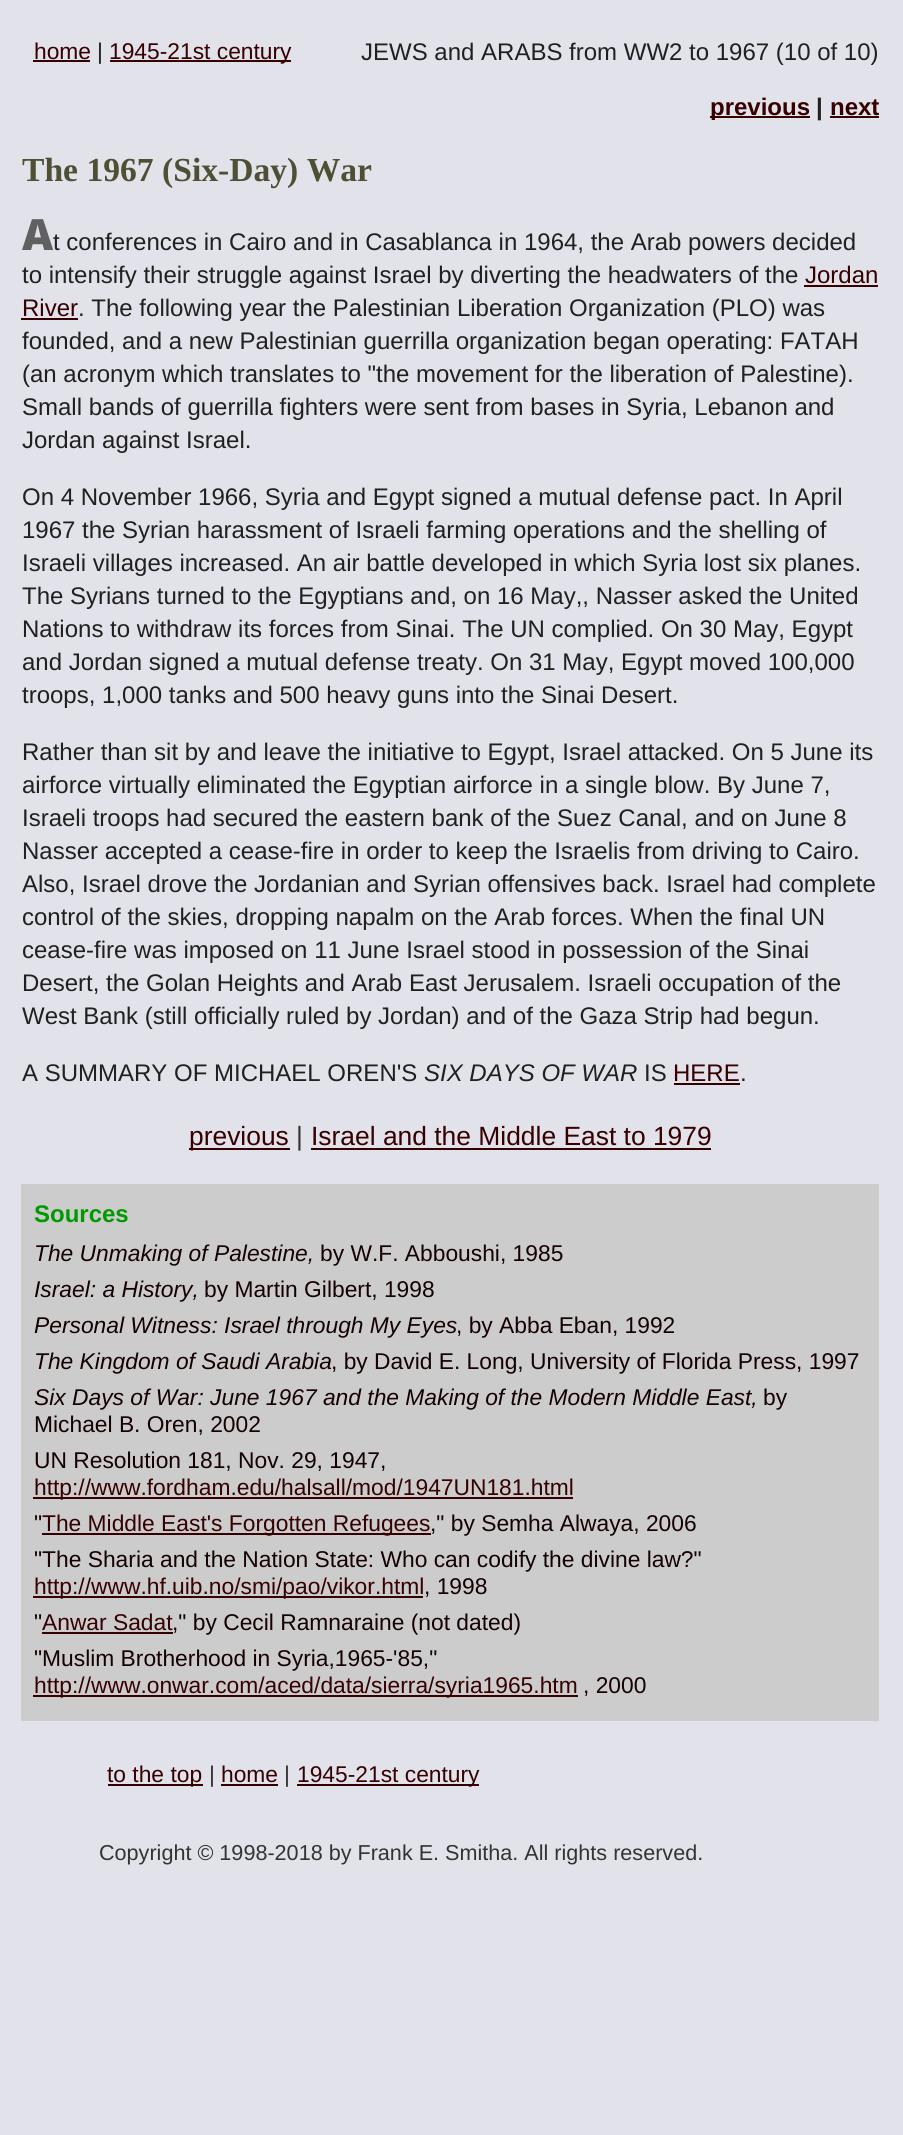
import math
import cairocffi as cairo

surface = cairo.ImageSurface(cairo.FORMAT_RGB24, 903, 2135)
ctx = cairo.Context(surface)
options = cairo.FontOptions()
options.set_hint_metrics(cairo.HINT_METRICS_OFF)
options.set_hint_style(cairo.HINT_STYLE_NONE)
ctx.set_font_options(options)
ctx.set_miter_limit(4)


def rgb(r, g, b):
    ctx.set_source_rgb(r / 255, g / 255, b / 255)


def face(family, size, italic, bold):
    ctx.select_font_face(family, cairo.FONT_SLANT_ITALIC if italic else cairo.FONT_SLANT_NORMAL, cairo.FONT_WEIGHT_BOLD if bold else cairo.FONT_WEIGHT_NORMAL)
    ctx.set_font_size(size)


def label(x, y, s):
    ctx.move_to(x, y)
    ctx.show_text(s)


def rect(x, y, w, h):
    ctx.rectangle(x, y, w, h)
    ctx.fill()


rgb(226, 226, 234)
ctx.paint()
face('Liberation Sans', 22.8, 0, 0)
rgb(54, 0, 0)
label(34, 59, 'home')
rect(33, 60, 57, 2)
rgb(32, 32, 32)
label(97, 59, '|')
rgb(54, 0, 0)
rect(110, 60, 181, 2)
label(109, 59, '1945-21st century')
face('Liberation Sans', 24, 0, 0)
rgb(32, 32, 32)
label(361, 60, 'JEWS and ARABS from WW2 to 1967 (10 of 10)')
rgb(54, 0, 0)
rect(710, 116, 100, 2)
face('Liberation Sans', 24, 0, 1)
label(710, 115, 'previous')
rgb(32, 32, 32)
label(816, 115, '|')
rgb(54, 0, 0)
label(830, 115, 'next')
rect(830, 116, 49, 2)
face('Liberation Serif', 33.6, 0, 1)
rgb(79, 79, 53)
label(22, 181, 'The 1967 (Six-Day) War')
face('Noto Sans Black', 43, 0, 0)
rgb(96, 96, 96)
label(22, 250, 'A')
face('Liberation Sans', 24, 0, 0)
rgb(32, 32, 32)
label(53, 250, 't conferences in Cairo and in Casablanca in 1964, the Arab powers decided')
label(22, 283, 'to intensify their struggle against Israel by diverting the headwaters of the')
rgb(54, 0, 0)
label(805, 283, 'Jordan')
rect(804, 285, 74, 2)
label(22, 316, 'River')
rect(21, 318, 57, 2)
rgb(32, 32, 32)
label(78, 316, '. The following year the Palestinian Liberation Organization (PLO) was')
label(22, 349, 'founded, and a new Palestinian guerrilla organization began operating: FATAH')
label(22, 382, '(an acronym which translates to "the movement for the liberation of Palestine).')
label(22, 415, 'Small bands of guerrilla fighters were sent from bases in Syria, Lebanon and')
label(22, 448, 'Jordan against Israel.')
label(22, 505, 'On 4 November 1966, Syria and Egypt signed a mutual defense pact. In April')
label(22, 538, '1967 the Syrian harassment of Israeli farming operations and the shelling of')
label(22, 571, 'Israeli villages increased. An air battle developed in which Syria lost six planes.')
label(22, 604, 'The Syrians turned to the Egyptians and, on 16 May,, Nasser asked the United')
label(22, 637, 'Nations to withdraw its forces from Sinai. The UN complied. On 30 May, Egypt')
label(22, 670, 'and Jordan signed a mutual defense treaty. On 31 May, Egypt moved 100,000')
label(22, 703, 'troops, 1,000 tanks and 500 heavy guns into the Sinai Desert.')
label(22, 760, 'Rather than sit by and leave the initiative to Egypt, Israel attacked. On 5 June its')
label(22, 793, 'airforce virtually eliminated the Egyptian airforce in a single blow. By June 7,')
label(22, 826, 'Israeli troops had secured the eastern bank of the Suez Canal, and on June 8')
label(22, 859, 'Nasser accepted a cease-fire in order to keep the Israelis from driving to Cairo.')
label(22, 892, 'Also, Israel drove the Jordanian and Syrian offensives back. Israel had complete')
label(22, 925, 'control of the skies, dropping napalm on the Arab forces. When the final UN')
label(22, 958, 'cease-fire was imposed on 11 June Israel stood in possession of the Sinai')
label(22, 991, 'Desert, the Golan Heights and Arab East Jerusalem. Israeli occupation of the')
label(22, 1024, 'West Bank (still officially ruled by Jordan) and of the Gaza Strip had begun.')
label(22, 1081, 'A SUMMARY OF MICHAEL OREN\'S')
face('Liberation Sans', 24, 1, 0)
label(424, 1081, 'SIX DAYS OF WAR')
face('Liberation Sans', 24, 0, 0)
label(644, 1081, 'IS')
rgb(54, 0, 0)
label(673, 1081, 'HERE')
rect(674, 1083, 66, 2)
rgb(32, 32, 32)
label(740, 1081, '.')
rgb(54, 0, 0)
rect(189, 1148, 101, 2)
face('Liberation Sans', 26.4, 0, 0)
label(189, 1145, 'previous')
rgb(51, 51, 51)
label(296, 1145, '|')
rgb(54, 0, 0)
label(311, 1145, 'Israel and the Middle East to 1979')
rect(311, 1148, 400, 2)
rgb(204, 204, 204)
rect(21, 1184, 858, 537)
face('Liberation Sans', 24, 0, 1)
rgb(0, 153, 0)
label(34, 1222, 'Sources')
face('Liberation Sans', 22.8, 1, 0)
rgb(20, 0, 0)
label(34, 1261, 'The Unmaking of Palestine,')
face('Liberation Sans', 22.8, 0, 0)
label(320, 1261, 'by W.F. Abboushi, 1985')
face('Liberation Sans', 22.8, 1, 0)
label(34, 1297, 'Israel: a History,')
face('Liberation Sans', 22.8, 0, 0)
label(204, 1297, 'by Martin Gilbert, 1998')
face('Liberation Sans', 22.8, 1, 0)
label(34, 1333, 'Personal Witness: Israel through My Eyes')
face('Liberation Sans', 22.8, 0, 0)
label(456, 1333, ', by Abba Eban, 1992')
face('Liberation Sans', 22.8, 1, 0)
label(34, 1369, 'The Kingdom of Saudi Arabia')
face('Liberation Sans', 22.8, 0, 0)
label(331, 1369, ', by David E. Long, University of Florida Press, 1997')
face('Liberation Sans', 22.8, 1, 0)
label(34, 1405, 'Six Days of War: June 1967 and the Making of the Modern Middle East,')
face('Liberation Sans', 22.8, 0, 0)
label(763, 1405, 'by')
label(34, 1432, 'Michael B. Oren, 2002')
label(34, 1468, 'UN Resolution 181, Nov. 29, 1947,')
rgb(54, 0, 0)
rect(33, 1497, 540, 2)
label(34, 1495, 'http://www.fordham.edu/halsall/mod/1947UN181.html')
rgb(20, 0, 0)
label(34, 1531, '"')
rgb(54, 0, 0)
rect(42, 1533, 389, 2)
label(42, 1531, 'The Middle East\'s Forgotten Refugees')
rgb(20, 0, 0)
label(430, 1531, '," by Semha Alwaya, 2006')
label(34, 1567, '"The Sharia and the Nation State: Who can codify the divine law?"')
rgb(54, 0, 0)
rect(33, 1596, 390, 2)
label(34, 1594, 'http://www.hf.uib.no/smi/pao/vikor.html')
rgb(20, 0, 0)
label(424, 1594, ', 1998')
label(34, 1630, '"')
rgb(54, 0, 0)
label(42, 1630, 'Anwar Sadat')
rect(42, 1632, 131, 2)
rgb(20, 0, 0)
label(172, 1630, '," by Cecil Ramnaraine (not dated)')
label(34, 1666, '"Muslim Brotherhood in Syria,1965-\'85,"')
rgb(54, 0, 0)
rect(33, 1695, 545, 2)
label(34, 1693, 'http://www.onwar.com/aced/data/sierra/syria1965.htm')
rgb(20, 0, 0)
label(583, 1693, ', 2000')
rgb(54, 0, 0)
rect(108, 1784, 95, 2)
label(107, 1782, 'to the top')
rgb(51, 51, 51)
label(209, 1782, '|')
rgb(54, 0, 0)
label(221, 1782, 'home')
rect(221, 1784, 57, 2)
rgb(51, 51, 51)
label(284, 1782, '|')
rgb(54, 0, 0)
rect(297, 1784, 182, 2)
label(297, 1782, '1945-21st century')
face('Liberation Sans', 21.6, 0, 0)
rgb(51, 51, 51)
label(99, 1860, 'Copyright © 1998-2018 by Frank E. Smitha. All rights reserved.')
surface.write_to_png('render.png')
